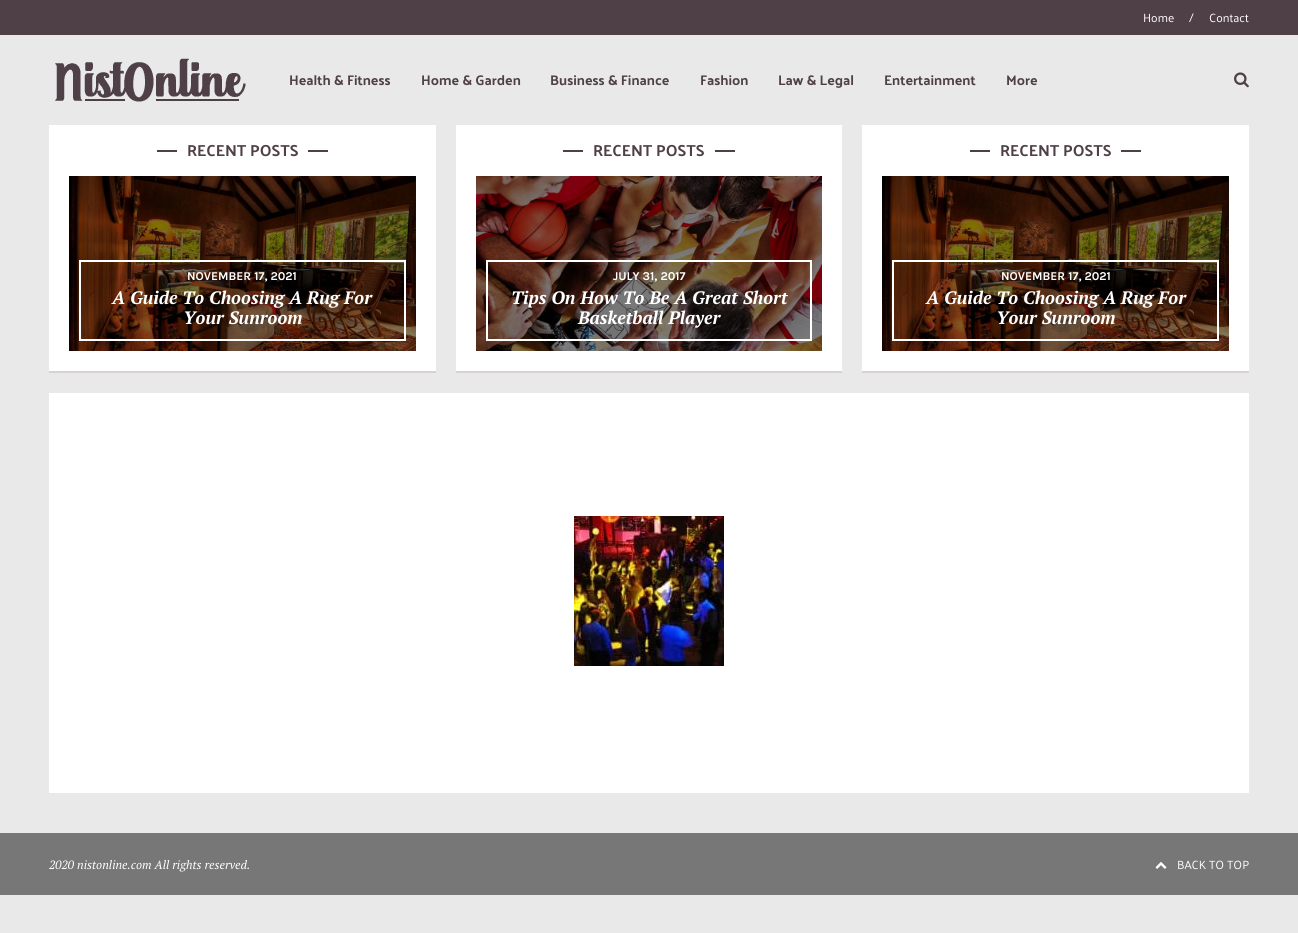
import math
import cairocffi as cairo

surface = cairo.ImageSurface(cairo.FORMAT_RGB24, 1298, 933)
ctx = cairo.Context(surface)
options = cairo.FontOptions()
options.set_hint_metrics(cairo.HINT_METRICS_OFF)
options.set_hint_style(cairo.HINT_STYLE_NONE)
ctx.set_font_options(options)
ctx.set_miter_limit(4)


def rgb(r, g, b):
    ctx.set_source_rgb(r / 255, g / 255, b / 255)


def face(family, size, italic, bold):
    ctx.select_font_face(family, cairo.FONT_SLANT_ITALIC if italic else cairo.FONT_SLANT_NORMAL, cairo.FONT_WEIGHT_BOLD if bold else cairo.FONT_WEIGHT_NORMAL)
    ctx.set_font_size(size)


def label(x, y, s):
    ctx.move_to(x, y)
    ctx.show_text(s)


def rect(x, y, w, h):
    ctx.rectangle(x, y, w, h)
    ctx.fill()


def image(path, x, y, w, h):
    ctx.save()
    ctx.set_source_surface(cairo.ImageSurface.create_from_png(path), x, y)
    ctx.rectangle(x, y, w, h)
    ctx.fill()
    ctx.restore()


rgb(233, 233, 233)
ctx.paint()
rgb(79, 64, 71)
rect(0, 0, 1298, 35)
face('Palanquin', 12, 0, 0)
rgb(255, 255, 255)
label(1143, 22, 'Home')
label(1189, 22, '/')
label(1209, 22, 'Contact')
image('image0.png', 55, 58, 191, 44)
face('Palanquin', 14, 0, 1)
rgb(79, 64, 71)
label(289, 85, 'Health & Fitness')
label(421, 85, 'Home & Garden')
label(550, 85, 'Business & Finance')
label(700, 85, 'Fashion')
label(778, 85, 'Law & Legal')
label(884, 85, 'Entertainment')
label(1006, 85, 'More')
image('image1.png', 1234, 72, 15, 16)
rgb(255, 255, 255)
rect(49, 125, 387, 246)
rgb(79, 64, 71)
rect(157, 150, 20, 2)
face('Palanquin', 16, 0, 1)
label(187, 156, 'RECENT POSTS')
rect(308, 150, 20, 2)
rgb(0, 0, 0)
rect(69, 176, 347, 175)
image('image2.png', 69, 176, 347, 175)
ctx.rectangle(80, 261, 325, 79)
rgb(255, 255, 255)
ctx.stroke()
face('Karla', 12, 0, 1)
label(187, 280, 'NOVEMBER 17, 2021')
face('PT Serif', 18, 1, 1)
label(112, 304, 'A Guide To Choosing A Rug For')
label(183, 324, 'Your Sunroom')
rgb(216, 209, 209)
rect(49, 371, 387, 2)
rgb(255, 255, 255)
rect(456, 125, 386, 246)
rgb(79, 64, 71)
rect(563, 150, 20, 2)
face('Palanquin', 16, 0, 1)
label(593, 156, 'RECENT POSTS')
rect(715, 150, 20, 2)
rgb(0, 0, 0)
rect(476, 176, 346, 175)
image('image3.png', 476, 176, 346, 175)
ctx.rectangle(487, 261, 324, 79)
rgb(255, 255, 255)
ctx.stroke()
face('Karla', 12, 0, 1)
label(613, 280, 'JULY 31, 2017')
face('PT Serif', 18, 1, 1)
label(511, 304, 'Tips On How To Be A Great Short')
label(578, 324, 'Basketball Player')
rgb(216, 209, 209)
rect(456, 371, 386, 2)
rgb(255, 255, 255)
rect(862, 125, 387, 246)
rgb(79, 64, 71)
rect(970, 150, 20, 2)
face('Palanquin', 16, 0, 1)
label(1000, 156, 'RECENT POSTS')
rect(1121, 150, 20, 2)
rgb(0, 0, 0)
rect(882, 176, 347, 175)
image('image2.png', 882, 176, 347, 175)
ctx.rectangle(893, 261, 325, 79)
rgb(255, 255, 255)
ctx.stroke()
face('Karla', 12, 0, 1)
label(1001, 280, 'NOVEMBER 17, 2021')
face('PT Serif', 18, 1, 1)
label(926, 304, 'A Guide To Choosing A Rug For')
label(996, 324, 'Your Sunroom')
rgb(216, 209, 209)
rect(862, 371, 387, 2)
rgb(255, 255, 255)
rect(49, 393, 1200, 400)
image('image4.png', 574, 516, 150, 150)
rgb(119, 119, 119)
rect(0, 833, 1298, 62)
face('PT Serif', 12, 1, 0)
rgb(255, 255, 255)
label(49, 869, '2020 nistonline.com All rights reserved.')
image('image5.png', 1155, 862, 12, 7)
face('Palanquin', 12, 0, 0)
label(1177, 869, 'BACK TO TOP')
surface.write_to_png('render.png')
